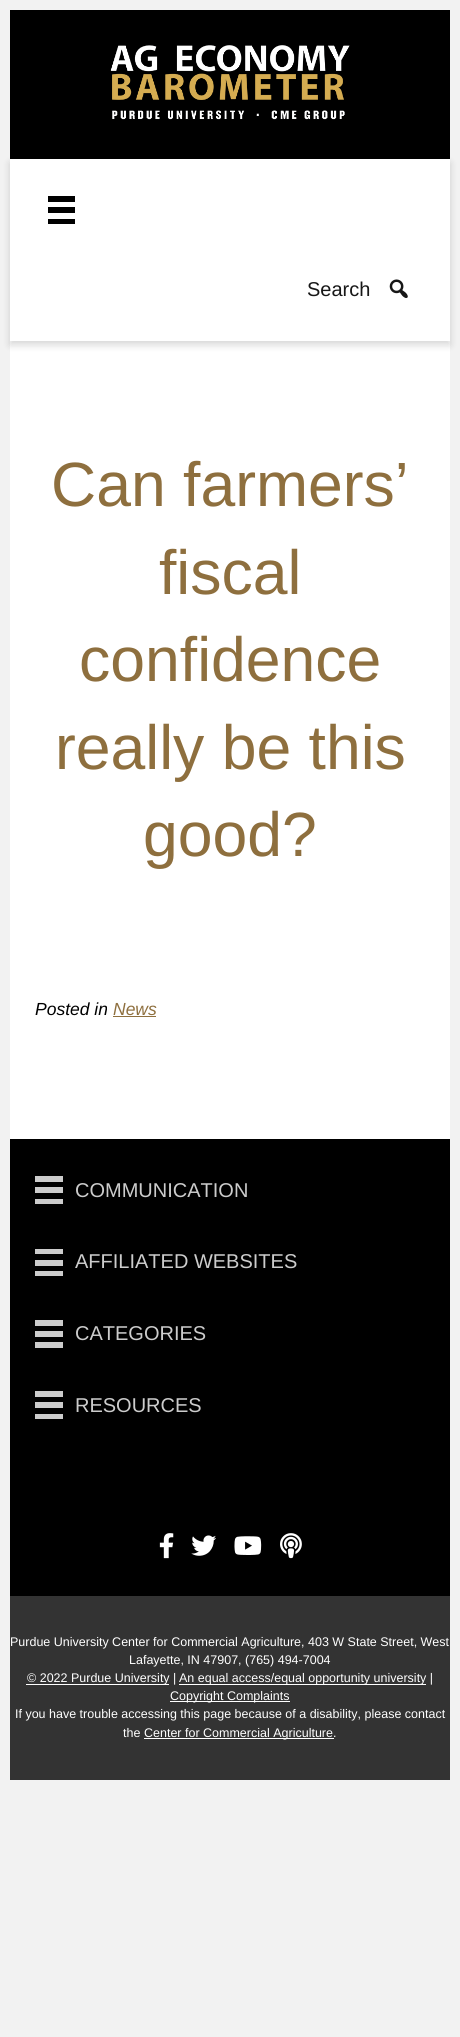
import math
import cairocffi as cairo

surface = cairo.ImageSurface(cairo.FORMAT_RGB24, 460, 2037)
ctx = cairo.Context(surface)
options = cairo.FontOptions()
options.set_hint_metrics(cairo.HINT_METRICS_OFF)
options.set_hint_style(cairo.HINT_STYLE_NONE)
ctx.set_font_options(options)
ctx.set_miter_limit(4)


def rgb(r, g, b):
    ctx.set_source_rgb(r / 255, g / 255, b / 255)


def face(family, size, italic, bold):
    ctx.select_font_face(family, cairo.FONT_SLANT_ITALIC if italic else cairo.FONT_SLANT_NORMAL, cairo.FONT_WEIGHT_BOLD if bold else cairo.FONT_WEIGHT_NORMAL)
    ctx.set_font_size(size)


def label(x, y, s):
    ctx.move_to(x, y)
    ctx.show_text(s)


def rect(x, y, w, h):
    ctx.rectangle(x, y, w, h)
    ctx.fill()


def rrect(x, y, w, h, r):
    ctx.new_sub_path()
    for i, (u, v) in enumerate([(x + w - r, y + h - r), (x + r, y + h - r), (x + r, y + r), (x + w - r, y + r)]):
        ctx.arc(u, v, r, i * math.pi / 2, (i + 1) * math.pi / 2)
    ctx.close_path()


def soft_shadow(x, y, w, h, r, blur, alpha):
    ctx.push_group_with_content(cairo.CONTENT_ALPHA)
    ctx.set_operator(cairo.OPERATOR_SOURCE)
    for i in range(15, -16, -2):
        e = blur * i / 6
        if min(w, h) + 2 * e > 0:
            ctx.set_source_rgba(0, 0, 0, alpha * math.erfc((i - 1) / 8.5) / 2)
            rrect(x - e, y - e, w + 2 * e, h + 2 * e, max(0, min(r + e + blur * .6, min(w, h) / 2 + e)))
            ctx.fill()
    ctx.mask(ctx.pop_group())


def image(path, x, y, w, h):
    ctx.save()
    ctx.set_source_surface(cairo.ImageSurface.create_from_png(path), x, y)
    ctx.rectangle(x, y, w, h)
    ctx.fill()
    ctx.restore()


rgb(242, 242, 242)
ctx.paint()
rgb(0, 0, 0)
rect(10, 10, 440, 149)
image('image0.png', 110, 45, 240, 75)
rgb(255, 255, 255)
rect(10, 341, 440, 798)
rgb(0, 0, 0)
soft_shadow(10, 163, 440, 182, 0, 4, 0.16)
rgb(255, 255, 255)
rect(10, 159, 440, 182)
rgb(0, 0, 0)
rect(48, 196, 27, 6)
rect(48, 207, 27, 6)
rect(48, 219, 27, 5)
face('Liberation Sans', 20, 0, 0)
rgb(23, 23, 23)
label(307, 296, 'Search')
image('image1.png', 389, 279, 19, 19)
face('Liberation Sans', 62.5, 0, 0)
rgb(142, 111, 62)
label(51, 506, 'Can farmers’')
label(159, 594, 'fiscal')
label(79, 681, 'confidence')
label(55, 769, 'really be this')
label(143, 856, 'good?')
face('Liberation Sans', 17.5, 1, 0)
rgb(0, 0, 0)
label(35, 1015, 'Posted in')
rgb(142, 111, 62)
label(113, 1015, 'News')
rect(113, 1016, 43, 1)
rgb(0, 0, 0)
rect(10, 1139, 440, 457)
rgb(204, 204, 204)
rect(35, 1176, 28, 6)
rect(35, 1187, 28, 6)
rect(35, 1199, 28, 5)
face('Liberation Sans', 20, 0, 0)
label(75, 1197, 'COMMUNICATION')
rect(35, 1249, 28, 5)
rect(35, 1260, 28, 6)
rect(35, 1271, 28, 5)
label(75, 1268, 'AFFILIATED WEBSITES')
rect(35, 1320, 28, 6)
rect(35, 1331, 28, 6)
rect(35, 1342, 28, 6)
label(75, 1340, 'CATEGORIES')
rect(35, 1391, 28, 6)
rect(35, 1402, 28, 6)
rect(35, 1414, 28, 5)
label(75, 1412, 'RESOURCES')
image('image2.png', 159, 1533, 15, 26)
image('image3.png', 191, 1535, 25, 21)
image('image4.png', 234, 1536, 28, 19)
image('image5.png', 280, 1533, 22, 26)
rgb(51, 51, 51)
rect(10, 1596, 440, 184)
face('Liberation Sans', 12.5, 0, 0)
rgb(255, 255, 255)
label(10, 1646, 'Purdue University Center for Commercial Agriculture, 403 W State Street, West')
label(129, 1664, 'Lafayette, IN 47907, (765) 494-7004')
rect(26, 1684, 143, 1)
label(27, 1682, '© 2022 Purdue University |')
rect(179, 1684, 247, 1)
label(179, 1682, 'An equal access/equal opportunity university |')
rect(170, 1701, 120, 1)
label(170, 1700, 'Copyright Complaints')
label(15, 1718, 'If you have trouble accessing this page because of a disability, please contact')
label(123, 1737, 'the')
rect(144, 1738, 190, 1)
label(144, 1737, 'Center for Commercial Agriculture.')
surface.write_to_png('render.png')
